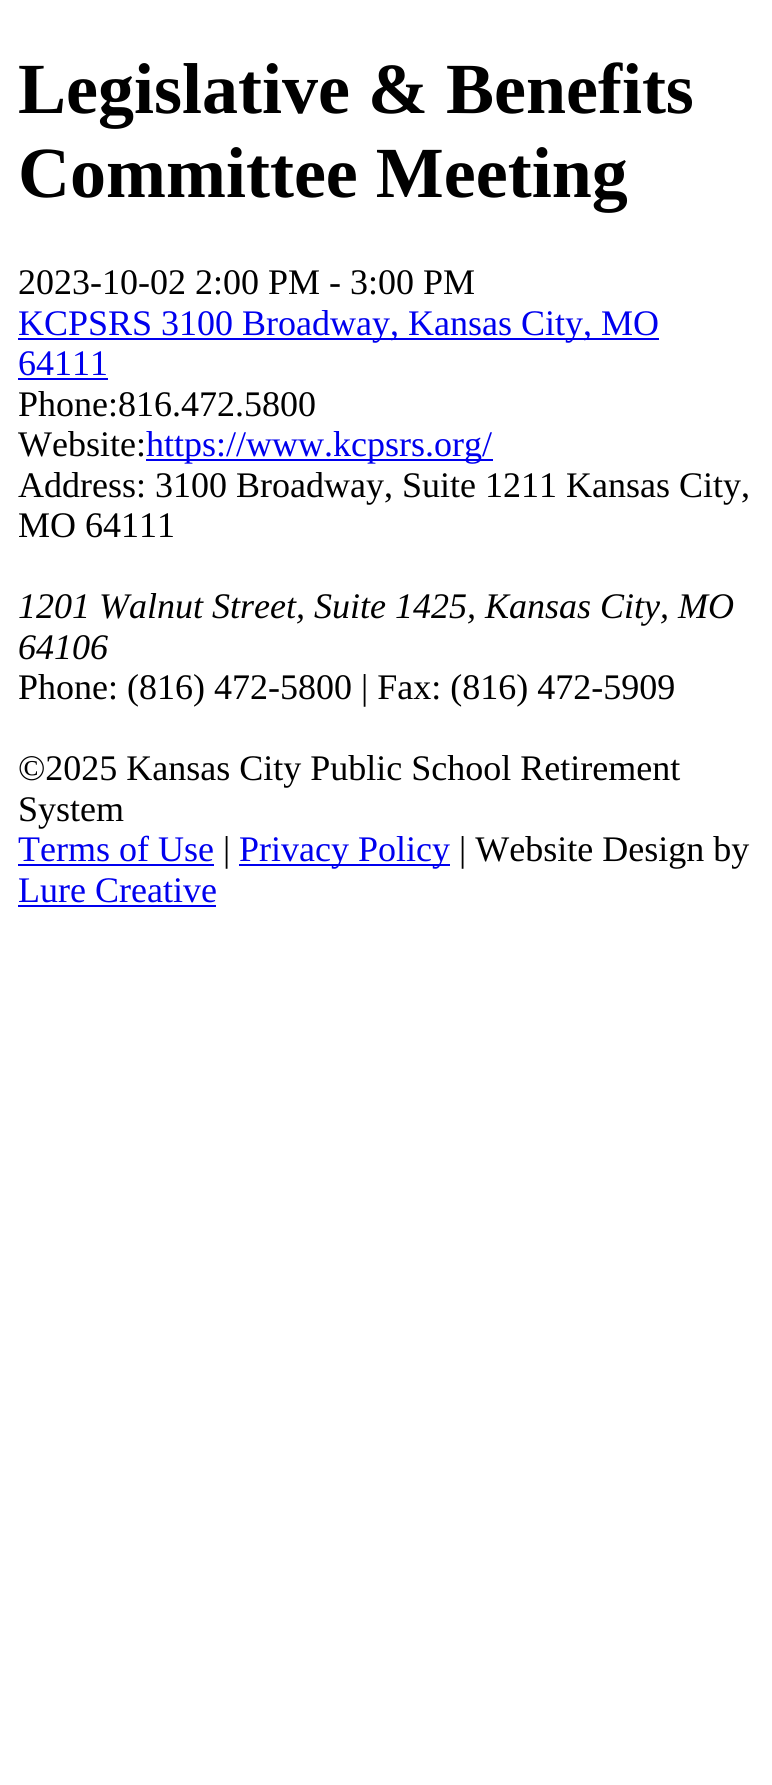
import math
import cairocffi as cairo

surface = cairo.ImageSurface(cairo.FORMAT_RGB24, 772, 1785)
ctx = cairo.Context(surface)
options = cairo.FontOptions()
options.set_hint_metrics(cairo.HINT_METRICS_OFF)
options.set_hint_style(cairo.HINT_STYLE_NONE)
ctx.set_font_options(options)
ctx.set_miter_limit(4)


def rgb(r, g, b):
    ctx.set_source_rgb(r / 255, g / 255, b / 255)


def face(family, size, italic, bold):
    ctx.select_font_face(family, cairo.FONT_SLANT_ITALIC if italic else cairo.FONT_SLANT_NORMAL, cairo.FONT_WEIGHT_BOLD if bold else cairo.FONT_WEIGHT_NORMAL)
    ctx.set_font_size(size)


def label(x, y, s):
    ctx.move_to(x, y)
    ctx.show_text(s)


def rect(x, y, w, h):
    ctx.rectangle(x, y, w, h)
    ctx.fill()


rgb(255, 255, 255)
ctx.paint()
face('Liberation Serif', 72, 0, 1)
rgb(0, 0, 0)
label(18, 113, 'Legislative & Benefits')
label(18, 197, 'Committee Meeting')
face('Liberation Serif', 36, 0, 0)
label(18, 294, '2023-10-02 2:00 PM - 3:00 PM')
rgb(0, 0, 238)
rect(18, 338, 641, 2)
label(18, 335, 'KCPSRS 3100 Broadway, Kansas City, MO')
label(18, 375, '64111')
rect(18, 378, 90, 2)
rgb(0, 0, 0)
label(18, 416, 'Phone:816.472.5800')
label(18, 456, 'Website:')
rgb(0, 0, 238)
rect(146, 459, 347, 2)
label(146, 456, 'https://www.kcpsrs.org/')
rgb(0, 0, 0)
label(18, 497, 'Address: 3100 Broadway, Suite 1211 Kansas City,')
label(18, 537, 'MO 64111')
face('Liberation Serif', 36, 1, 0)
label(18, 618, '1201 Walnut Street, Suite 1425, Kansas City, MO')
label(18, 659, '64106')
face('Liberation Serif', 36, 0, 0)
label(18, 699, 'Phone: (816) 472-5800 | Fax: (816) 472-5909')
label(18, 780, '©2025 Kansas City Public School Retirement')
label(18, 821, 'System')
rgb(0, 0, 238)
label(18, 861, 'Terms of Use')
rect(18, 864, 196, 2)
rgb(0, 0, 0)
label(223, 861, '|')
rgb(0, 0, 238)
rect(239, 864, 211, 2)
label(239, 861, 'Privacy Policy')
rgb(0, 0, 0)
label(459, 861, '| Website Design by')
rgb(0, 0, 238)
label(18, 902, 'Lure Creative')
rect(18, 905, 198, 2)
surface.write_to_png('render.png')
